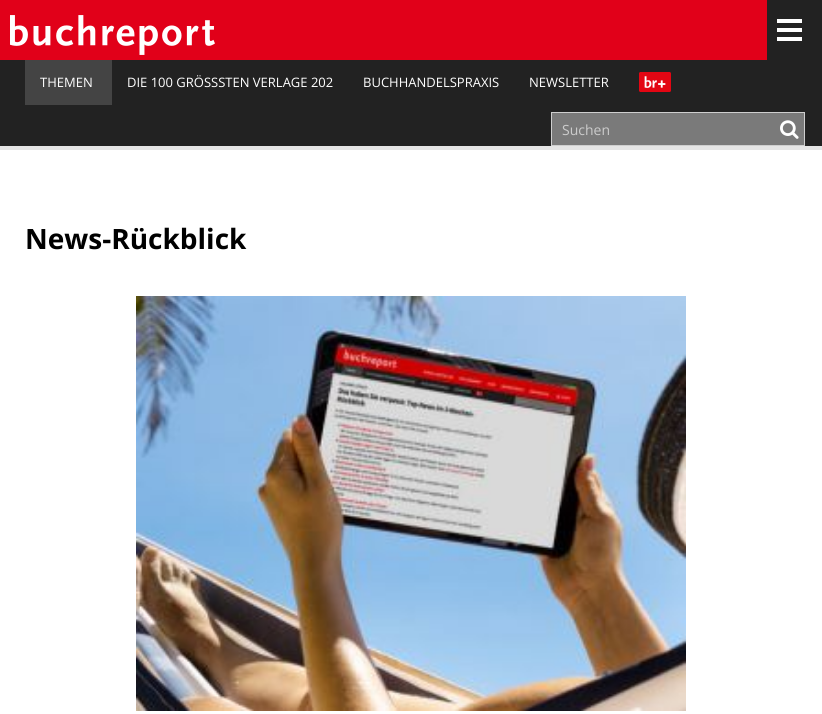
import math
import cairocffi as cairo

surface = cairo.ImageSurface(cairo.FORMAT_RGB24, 822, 714)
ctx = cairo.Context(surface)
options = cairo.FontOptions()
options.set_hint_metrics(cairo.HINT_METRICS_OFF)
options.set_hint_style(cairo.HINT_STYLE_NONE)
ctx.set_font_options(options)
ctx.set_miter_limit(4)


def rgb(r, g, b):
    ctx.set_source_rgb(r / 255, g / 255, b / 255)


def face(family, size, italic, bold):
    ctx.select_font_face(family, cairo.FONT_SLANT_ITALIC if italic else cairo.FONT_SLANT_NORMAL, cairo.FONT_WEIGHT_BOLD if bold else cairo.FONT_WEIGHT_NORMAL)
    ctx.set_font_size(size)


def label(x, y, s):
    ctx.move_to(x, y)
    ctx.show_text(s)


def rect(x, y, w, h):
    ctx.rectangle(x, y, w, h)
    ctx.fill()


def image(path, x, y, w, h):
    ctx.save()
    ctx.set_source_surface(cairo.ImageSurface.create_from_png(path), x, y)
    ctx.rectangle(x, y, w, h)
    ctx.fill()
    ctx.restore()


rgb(255, 255, 255)
ctx.paint()
rgb(34, 34, 34)
rect(767, 0, 55, 60)
rgb(225, 0, 25)
rect(0, 0, 767, 60)
image('image0.png', 10, 15, 205, 40)
rgb(255, 255, 255)
rect(777, 19, 25, 4)
rect(777, 28, 25, 4)
rect(777, 37, 25, 4)
rgb(34, 34, 34)
rect(0, 60, 822, 86)
rgb(229, 229, 229)
rect(0, 146, 822, 4)
rgb(68, 68, 68)
rect(25, 60, 87, 45)
face('Open Sans', 13, 0, 0)
rgb(255, 255, 255)
label(40, 87, 'THEMEN')
label(127, 87, 'DIE 100 GRÖSSSTEN VERLAGE 202')
label(363, 87, 'BUCHHANDELSPRAXIS')
label(529, 87, 'NEWSLETTER')
image('image1.png', 639, 72, 32, 20)
rgb(122, 122, 122)
ctx.rectangle(551.5, 112.5, 253, 33)
ctx.fill_preserve()
rgb(207, 207, 207)
ctx.set_line_width(1)
ctx.stroke()
face('Open Sans', 14, 0, 0)
rgb(204, 204, 204)
label(562, 135, 'Suchen')
image('image2.png', 780, 120, 19, 19)
face('Open Sans', 28, 0, 1)
rgb(0, 0, 0)
label(25, 249, 'News-Rückblick')
image('image3.png', 136, 296, 550, 415)
surface.write_to_png('render.png')
